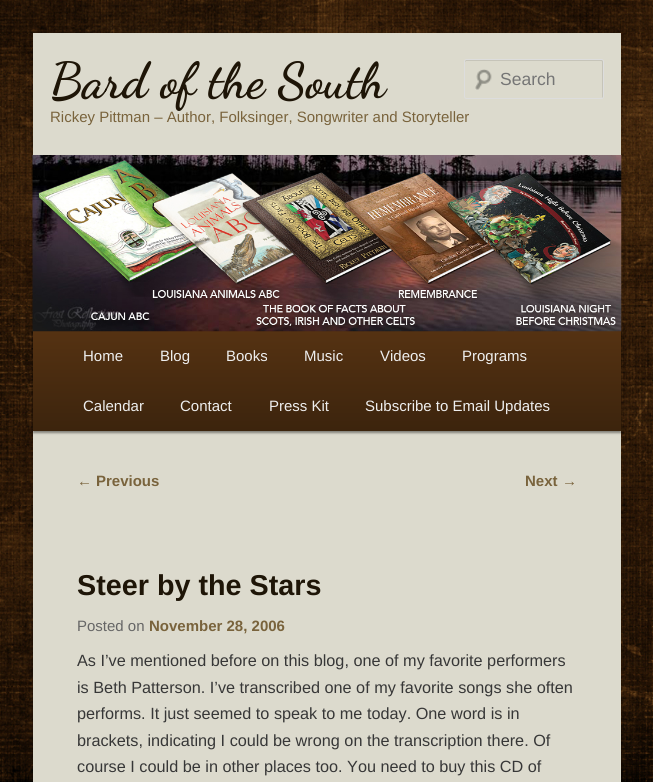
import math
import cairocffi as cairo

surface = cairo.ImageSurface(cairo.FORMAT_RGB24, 653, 782)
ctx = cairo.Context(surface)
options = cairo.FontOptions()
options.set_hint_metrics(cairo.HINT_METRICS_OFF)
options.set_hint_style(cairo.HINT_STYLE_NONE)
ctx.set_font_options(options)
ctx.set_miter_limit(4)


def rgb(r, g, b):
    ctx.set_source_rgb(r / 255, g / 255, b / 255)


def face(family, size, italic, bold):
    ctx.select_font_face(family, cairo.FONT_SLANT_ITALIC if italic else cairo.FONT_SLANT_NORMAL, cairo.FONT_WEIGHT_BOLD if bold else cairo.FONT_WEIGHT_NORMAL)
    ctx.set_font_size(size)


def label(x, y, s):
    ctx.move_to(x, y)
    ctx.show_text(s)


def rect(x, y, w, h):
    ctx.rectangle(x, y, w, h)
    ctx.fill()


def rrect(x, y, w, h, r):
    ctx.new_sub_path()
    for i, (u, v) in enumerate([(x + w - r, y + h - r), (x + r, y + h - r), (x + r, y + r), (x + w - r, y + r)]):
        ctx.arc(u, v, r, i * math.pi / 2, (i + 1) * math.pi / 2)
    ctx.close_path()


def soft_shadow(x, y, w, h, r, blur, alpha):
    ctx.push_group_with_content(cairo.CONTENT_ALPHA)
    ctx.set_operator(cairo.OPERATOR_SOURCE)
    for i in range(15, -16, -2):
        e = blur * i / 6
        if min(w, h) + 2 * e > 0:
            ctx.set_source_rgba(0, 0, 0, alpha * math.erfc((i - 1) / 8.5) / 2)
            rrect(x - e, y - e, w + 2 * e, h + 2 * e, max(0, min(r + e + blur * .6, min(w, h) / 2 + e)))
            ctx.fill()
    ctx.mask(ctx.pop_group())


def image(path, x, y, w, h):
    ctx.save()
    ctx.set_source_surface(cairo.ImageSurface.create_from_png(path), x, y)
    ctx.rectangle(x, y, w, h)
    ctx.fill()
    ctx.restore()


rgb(255, 255, 255)
ctx.paint()
image('image0.png', 0, 0, 653, 782)
rgb(220, 218, 205)
rect(33, 33, 588, 749)
face('Dancing Script', 50, 0, 1)
rgb(30, 21, 7)
label(50, 97, 'Bard of the South')
face('Liberation Sans', 15, 0, 0)
rgb(121, 99, 60)
label(50, 122, 'Rickey Pittman – Author, Folksinger, Songwriter and Storyteller')
image('image1.png', 475, 69, 17, 21)
rgb(198, 196, 185)
ctx.new_path()
ctx.move_to(466, 61)
ctx.line_to(601, 61)
ctx.curve_to(602, 61, 602, 62, 602, 62)
ctx.line_to(602, 98)
ctx.curve_to(603, 98, 603, 98, 603, 97)
ctx.line_to(603, 61)
ctx.curve_to(603, 60, 603, 60, 602, 60)
ctx.line_to(466, 60)
ctx.curve_to(465, 60, 465, 60, 465, 61)
ctx.line_to(465, 62)
ctx.close_path()
ctx.fill()
rrect(464.5, 59.5, 139, 39, 2)
rgb(221, 221, 221)
ctx.set_line_width(1)
ctx.stroke()
face('Liberation Sans', 17.5, 0, 0)
rgb(117, 117, 117)
label(500, 85, 'Search')
rgb(0, 0, 0)
soft_shadow(33, 333, 588, 100, 0, 1, 0.4)
gradient = cairo.LinearGradient(327, 331, 327, 431)
gradient.add_color_stop_rgba(0, 0.333, 0.196, 0.071, 1)
gradient.add_color_stop_rgba(1, 0.235, 0.141, 0.051, 1)
ctx.set_source(gradient)
rect(33, 331, 588, 100)
image('image2.png', 32, 155, 590, 177)
face('Liberation Sans', 15, 0, 0)
rgb(238, 238, 238)
label(83, 361, 'Home')
label(160, 361, 'Blog')
label(226, 361, 'Books')
label(304, 361, 'Music')
label(380, 361, 'Videos')
label(462, 361, 'Programs')
label(83, 411, 'Calendar')
label(180, 411, 'Contact')
label(269, 411, 'Press Kit')
label(365, 411, 'Subscribe to Email Updates')
rgb(121, 99, 60)
label(77, 486, '←')
face('Liberation Sans', 15, 0, 1)
label(96, 486, 'Previous')
label(525, 486, 'Next')
face('Liberation Sans', 15, 0, 0)
label(562, 486, '→')
face('Liberation Sans', 28.75, 0, 1)
rgb(30, 21, 7)
label(77, 595, 'Steer by the Stars')
face('Liberation Sans', 15, 0, 0)
rgb(102, 102, 102)
label(77, 631, 'Posted on')
face('Liberation Sans', 15, 0, 1)
rgb(121, 99, 60)
label(149, 631, 'November 28, 2006')
face('Liberation Sans', 16.25, 0, 0)
rgb(55, 55, 55)
label(77, 666, 'As I’ve mentioned before on this blog, one of my favorite performers')
label(77, 693, 'is Beth Patterson. I’ve transcribed one of my favorite songs she often')
label(77, 719, 'performs. It just seemed to speak to me today. One word is in')
label(77, 746, 'brackets, indicating I could be wrong on the transcription there. Of')
label(77, 772, 'course I could be in other places too. You need to buy this CD of')
surface.write_to_png('render.png')
